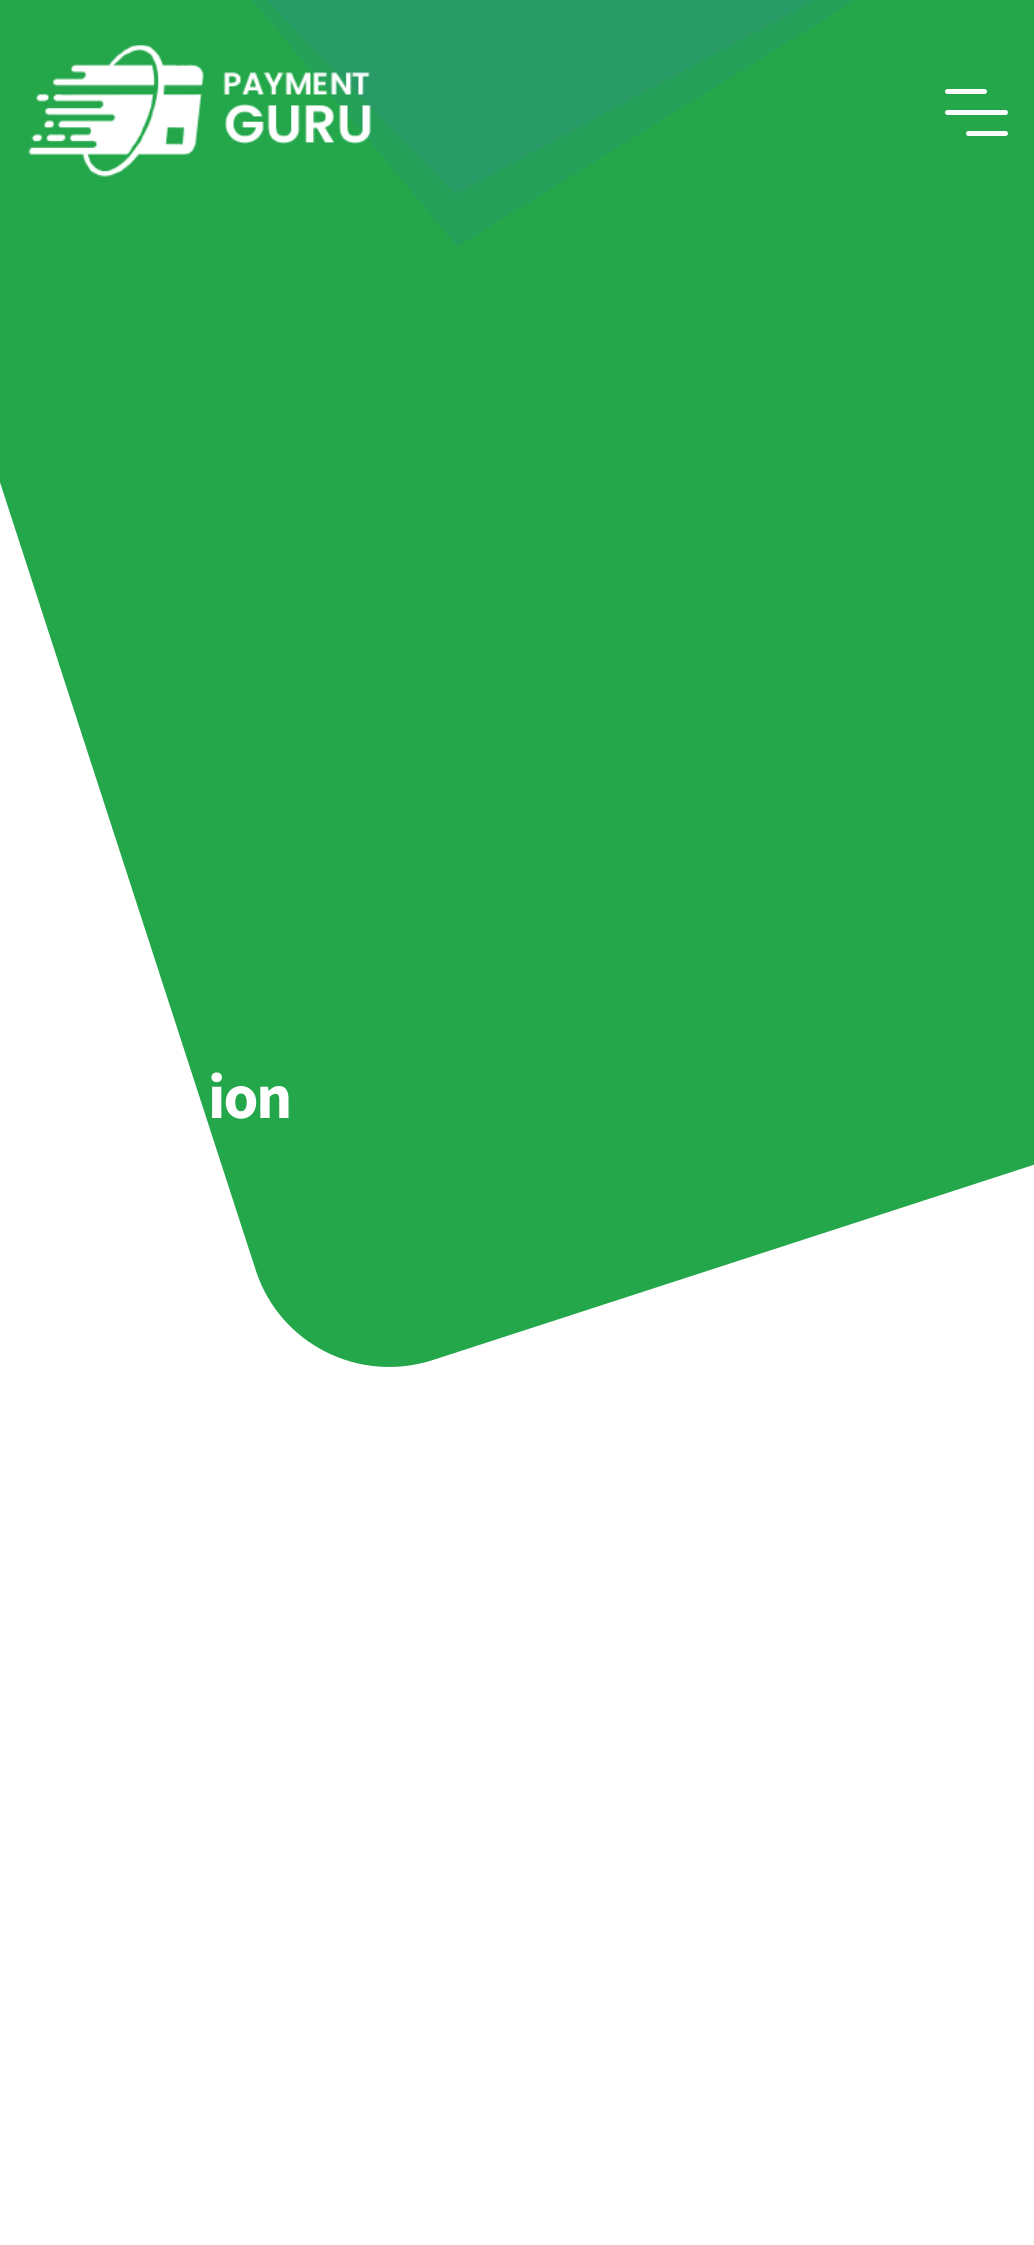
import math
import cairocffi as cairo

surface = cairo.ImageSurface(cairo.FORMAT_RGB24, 1034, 2245)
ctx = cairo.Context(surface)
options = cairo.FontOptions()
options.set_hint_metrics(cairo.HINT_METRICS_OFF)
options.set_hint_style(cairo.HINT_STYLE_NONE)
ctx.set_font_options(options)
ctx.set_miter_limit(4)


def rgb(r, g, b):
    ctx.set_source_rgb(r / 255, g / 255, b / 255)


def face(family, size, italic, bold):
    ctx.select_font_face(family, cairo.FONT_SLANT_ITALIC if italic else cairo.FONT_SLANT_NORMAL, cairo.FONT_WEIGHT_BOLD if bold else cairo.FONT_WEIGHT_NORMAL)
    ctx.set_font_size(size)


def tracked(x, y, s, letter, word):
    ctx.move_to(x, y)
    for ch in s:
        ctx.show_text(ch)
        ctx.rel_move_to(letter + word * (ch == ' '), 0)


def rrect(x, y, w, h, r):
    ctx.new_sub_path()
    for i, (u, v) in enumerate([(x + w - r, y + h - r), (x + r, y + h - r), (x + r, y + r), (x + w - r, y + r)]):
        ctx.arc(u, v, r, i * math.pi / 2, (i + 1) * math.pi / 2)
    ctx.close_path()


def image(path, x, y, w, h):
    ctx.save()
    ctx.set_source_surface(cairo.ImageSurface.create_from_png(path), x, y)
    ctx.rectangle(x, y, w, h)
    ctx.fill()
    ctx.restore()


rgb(255, 255, 255)
ctx.paint()
rgb(35, 167, 74)
ctx.new_path()
ctx.move_to(-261, -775)
ctx.line_to(850, -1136)
ctx.curve_to(923, -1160, 1002, -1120, 1026, -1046)
ctx.line_to(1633, 823)
ctx.curve_to(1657, 897, 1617, 976, 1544, 999)
ctx.line_to(433, 1360)
ctx.curve_to(359, 1384, 280, 1344, 256, 1271)
ctx.line_to(-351, -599)
ctx.curve_to(-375, -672, -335, -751, -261, -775)
ctx.close_path()
ctx.fill()
image('image1.png', 252, 0, 603, 247)
image('image0.png', 28, 45, 343, 132)
rgb(255, 255, 255)
rrect(945, 110, 63, 5, 2.5)
ctx.fill()
rrect(945, 89, 42, 5, 2.5)
ctx.fill()
rrect(966, 131, 42, 5, 2.5)
ctx.fill()
face('Source Sans Pro', 63, 0, 1)
tracked(208, 1118, 'ion', -2, 0)
surface.write_to_png('render.png')
